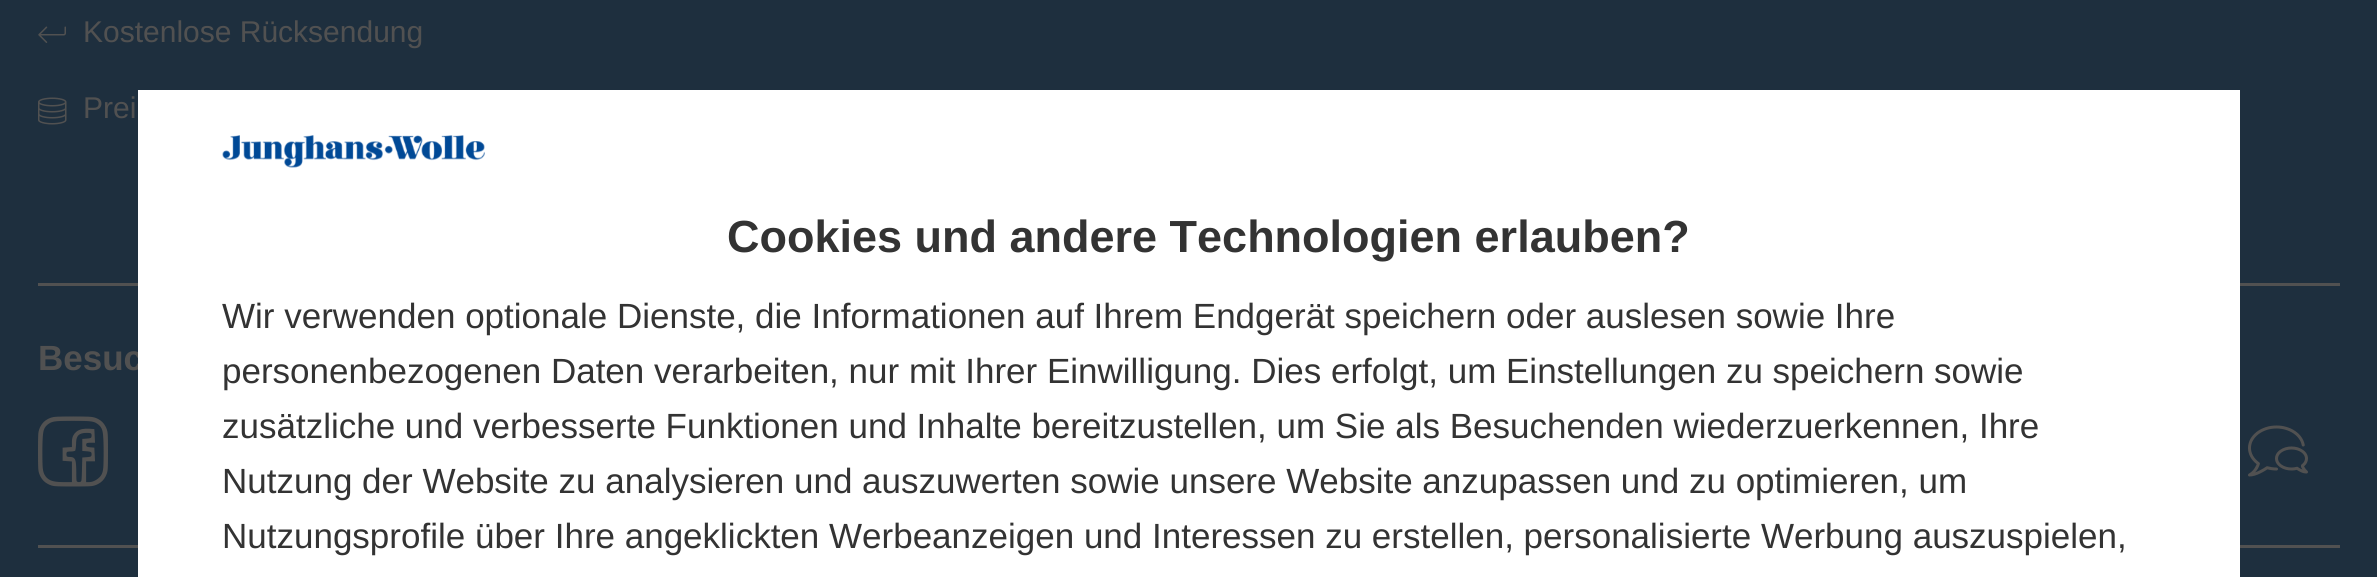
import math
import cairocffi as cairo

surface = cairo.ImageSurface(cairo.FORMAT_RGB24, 2377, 577)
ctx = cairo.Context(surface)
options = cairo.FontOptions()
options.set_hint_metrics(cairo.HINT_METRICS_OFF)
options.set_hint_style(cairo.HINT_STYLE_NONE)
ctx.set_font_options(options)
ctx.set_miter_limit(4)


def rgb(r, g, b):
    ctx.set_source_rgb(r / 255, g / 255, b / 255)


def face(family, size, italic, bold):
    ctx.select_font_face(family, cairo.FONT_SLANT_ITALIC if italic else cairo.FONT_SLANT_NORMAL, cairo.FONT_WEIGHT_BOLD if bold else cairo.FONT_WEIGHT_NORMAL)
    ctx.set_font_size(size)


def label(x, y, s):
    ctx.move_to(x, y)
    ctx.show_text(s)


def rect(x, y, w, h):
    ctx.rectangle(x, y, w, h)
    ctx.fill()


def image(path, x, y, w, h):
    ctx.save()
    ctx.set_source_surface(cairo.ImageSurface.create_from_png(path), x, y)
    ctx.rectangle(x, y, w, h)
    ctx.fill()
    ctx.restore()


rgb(30, 47, 62)
ctx.paint()
image('image0.png', 38, 26, 28, 17)
face('Liberation Sans', 30, 0, 0)
rgb(81, 81, 81)
label(83, 42, 'Kostenlose Rücksendung')
face('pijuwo', 30, 0, 0)
label(38, 123, '`')
face('Liberation Sans', 30, 0, 0)
label(83, 118, 'Prei')
rect(38, 283, 2302, 3)
face('Liberation Sans', 35, 0, 1)
label(38, 370, 'Besuc')
face('pijuwo', 70, 0, 0)
label(38, 483, '=')
rect(38, 545, 2302, 3)
face('pijuwo', 60, 0, 0)
label(2248, 478, '3')
rgb(255, 255, 255)
rect(138, 90, 2102, 487)
image('image1.png', 222, 135, 263, 33)
face('Liberation Sans', 45, 0, 1)
rgb(51, 51, 51)
label(727, 252, 'Cookies und andere Technologien erlauben?')
face('Liberation Sans', 35, 0, 0)
label(222, 328, 'Wir verwenden optionale Dienste, die Informationen auf Ihrem Endgerät speichern oder auslesen sowie Ihre')
label(222, 383, 'personenbezogenen Daten verarbeiten, nur mit Ihrer Einwilligung. Dies erfolgt, um Einstellungen zu speichern sowie')
label(222, 438, 'zusätzliche und verbesserte Funktionen und Inhalte bereitzustellen, um Sie als Besuchenden wiederzuerkennen, Ihre')
label(222, 493, 'Nutzung der Website zu analysieren und auszuwerten sowie unsere Website anzupassen und zu optimieren, um')
label(222, 548, 'Nutzungsprofile über Ihre angeklickten Werbeanzeigen und Interessen zu erstellen, personalisierte Werbung auszuspielen,')
surface.write_to_png('render.png')
